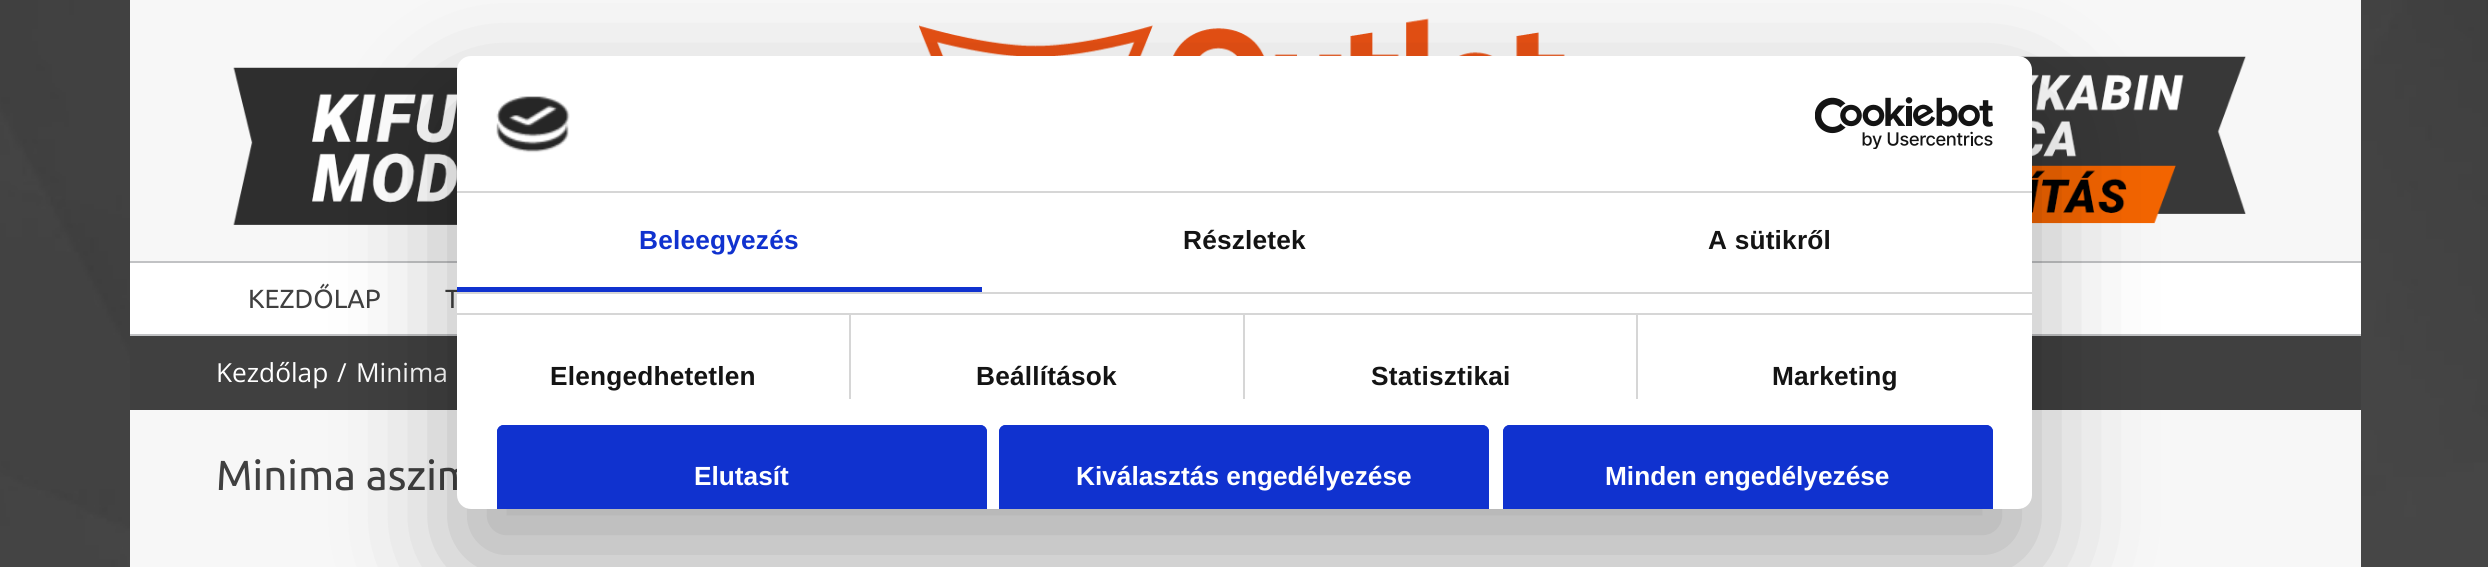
import math
import cairocffi as cairo

surface = cairo.ImageSurface(cairo.FORMAT_RGB24, 2488, 567)
ctx = cairo.Context(surface)
options = cairo.FontOptions()
options.set_hint_metrics(cairo.HINT_METRICS_OFF)
options.set_hint_style(cairo.HINT_STYLE_NONE)
ctx.set_font_options(options)
ctx.set_miter_limit(4)


def rgb(r, g, b):
    ctx.set_source_rgb(r / 255, g / 255, b / 255)


def face(family, size, italic, bold):
    ctx.select_font_face(family, cairo.FONT_SLANT_ITALIC if italic else cairo.FONT_SLANT_NORMAL, cairo.FONT_WEIGHT_BOLD if bold else cairo.FONT_WEIGHT_NORMAL)
    ctx.set_font_size(size)


def label(x, y, s):
    ctx.move_to(x, y)
    ctx.show_text(s)


def tracked(x, y, s, letter, word):
    ctx.move_to(x, y)
    for ch in s:
        ctx.show_text(ch)
        ctx.rel_move_to(letter + word * (ch == ' '), 0)


def rect(x, y, w, h):
    ctx.rectangle(x, y, w, h)
    ctx.fill()


def rrect(x, y, w, h, r):
    ctx.new_sub_path()
    for i, (u, v) in enumerate([(x + w - r, y + h - r), (x + r, y + h - r), (x + r, y + r), (x + w - r, y + r)]):
        ctx.arc(u, v, r, i * math.pi / 2, (i + 1) * math.pi / 2)
    ctx.close_path()


def soft_shadow(x, y, w, h, r, blur, alpha):
    ctx.push_group_with_content(cairo.CONTENT_ALPHA)
    ctx.set_operator(cairo.OPERATOR_SOURCE)
    for i in range(15, -16, -2):
        e = blur * i / 6
        if min(w, h) + 2 * e > 0:
            ctx.set_source_rgba(0, 0, 0, alpha * math.erfc((i - 1) / 8.5) / 2)
            rrect(x - e, y - e, w + 2 * e, h + 2 * e, max(0, min(r + e + blur * .6, min(w, h) / 2 + e)))
            ctx.fill()
    ctx.mask(ctx.pop_group())


def image(path, x, y, w, h):
    ctx.save()
    ctx.set_source_surface(cairo.ImageSurface.create_from_png(path), x, y)
    ctx.rectangle(x, y, w, h)
    ctx.fill()
    ctx.restore()


rgb(255, 255, 255)
ctx.paint()
image('image0.png', 0, 0, 2488, 567)
rgb(247, 247, 247)
rect(130, 0, 2231, 567)
image('image1.png', 919, 18, 646, 38)
image('image2.png', 233, 67, 225, 158)
image('image3.png', 2018, 56, 228, 168)
rgb(255, 255, 255)
rect(130, 263, 2231, 71)
rgb(193, 194, 196)
rect(130, 261, 2231, 2)
rect(130, 334, 2231, 2)
face('Ubuntu', 26.25, 0, 0)
rgb(64, 64, 64)
label(248, 308, 'KEZDŐLAP')
label(445, 308, 'T')
rect(130, 336, 2231, 74)
face('Open Sans', 26.25, 0, 0)
rgb(255, 255, 255)
label(216, 382, 'Kezdőlap')
label(337, 382, '/')
label(356, 382, 'Minima')
face('Ubuntu', 42, 0, 0)
rgb(64, 64, 64)
label(216, 490, 'Minima aszim')
rgb(0, 0, 0)
soft_shadow(457, 112, 1575, 453, 14, 59.5, 0.3)
rgb(255, 255, 255)
rrect(457, 56, 1575, 453, 14)
ctx.fill()
rgb(214, 214, 214)
rect(457, 191, 1575, 2)
image('image4.png', 496, 96, 74, 57)
image('image5.png', 1815, 97, 178, 52)
rect(457, 292, 1575, 2)
rgb(16, 50, 207)
rect(457, 287, 525, 5)
face('Liberation Sans', 26.25, 0, 1)
tracked(639, 249, 'Beleegyezés', 0.2, 0)
rgb(20, 20, 20)
tracked(1183, 249, 'Részletek', 0.2, 0)
tracked(1708, 249, 'A sütikről', 0.2, 0)
rgb(214, 214, 214)
rect(457, 313, 1575, 2)
rect(849, 315, 2, 84)
rgb(20, 20, 20)
tracked(550, 385, 'Elengedhetetlen', 0.2, 0)
rgb(214, 214, 214)
rect(1243, 315, 2, 84)
rgb(20, 20, 20)
tracked(976, 385, 'Beállítások', 0.2, 0)
rgb(214, 214, 214)
rect(1636, 315, 2, 84)
rgb(20, 20, 20)
tracked(1371, 385, 'Statisztikai', 0.2, 0)
tracked(1772, 385, 'Marketing', 0.2, 0)
rgb(16, 50, 207)
ctx.new_path()
ctx.move_to(504, 425)
ctx.line_to(980, 425)
ctx.curve_to(984, 425, 987, 428, 987, 432)
ctx.line_to(987, 509)
ctx.line_to(497, 509)
ctx.line_to(497, 432)
ctx.curve_to(497, 428, 500, 425, 504, 425)
ctx.close_path()
ctx.fill()
ctx.new_path()
ctx.move_to(504, 425)
ctx.curve_to(500, 425, 497, 428, 497, 432)
ctx.line_to(497, 509)
ctx.line_to(501, 509)
ctx.line_to(501, 432)
ctx.curve_to(501, 430, 502, 429, 504, 429)
ctx.line_to(980, 429)
ctx.curve_to(982, 429, 983, 430, 983, 432)
ctx.line_to(983, 509)
ctx.line_to(987, 509)
ctx.line_to(987, 432)
ctx.curve_to(987, 428, 984, 425, 980, 425)
ctx.close_path()
ctx.fill()
rgb(255, 255, 255)
label(694, 485, 'Elutasít')
rgb(16, 50, 207)
ctx.new_path()
ctx.move_to(1006, 425)
ctx.line_to(1482, 425)
ctx.curve_to(1486, 425, 1489, 428, 1489, 432)
ctx.line_to(1489, 509)
ctx.line_to(999, 509)
ctx.line_to(999, 432)
ctx.curve_to(999, 428, 1002, 425, 1006, 425)
ctx.close_path()
ctx.fill()
ctx.new_path()
ctx.move_to(1006, 425)
ctx.curve_to(1002, 425, 999, 428, 999, 432)
ctx.line_to(999, 509)
ctx.line_to(1003, 509)
ctx.line_to(1003, 432)
ctx.curve_to(1003, 430, 1004, 429, 1006, 429)
ctx.line_to(1482, 429)
ctx.curve_to(1484, 429, 1485, 430, 1485, 432)
ctx.line_to(1485, 509)
ctx.line_to(1489, 509)
ctx.line_to(1489, 432)
ctx.curve_to(1489, 428, 1486, 425, 1482, 425)
ctx.close_path()
ctx.fill()
rgb(255, 255, 255)
label(1076, 485, 'Kiválasztás engedélyezése')
rgb(16, 50, 207)
ctx.new_path()
ctx.move_to(1510, 425)
ctx.line_to(1986, 425)
ctx.curve_to(1990, 425, 1993, 428, 1993, 432)
ctx.line_to(1993, 509)
ctx.line_to(1503, 509)
ctx.line_to(1503, 432)
ctx.curve_to(1503, 428, 1506, 425, 1510, 425)
ctx.close_path()
ctx.fill()
ctx.new_path()
ctx.move_to(1510, 425)
ctx.curve_to(1506, 425, 1503, 428, 1503, 432)
ctx.line_to(1503, 509)
ctx.line_to(1507, 509)
ctx.line_to(1507, 432)
ctx.curve_to(1507, 430, 1508, 429, 1510, 429)
ctx.line_to(1986, 429)
ctx.curve_to(1988, 429, 1989, 430, 1989, 432)
ctx.line_to(1989, 509)
ctx.line_to(1993, 509)
ctx.line_to(1993, 432)
ctx.curve_to(1993, 428, 1990, 425, 1986, 425)
ctx.close_path()
ctx.fill()
rgb(255, 255, 255)
label(1605, 485, 'Minden engedélyezése')
surface.write_to_png('render.png')
